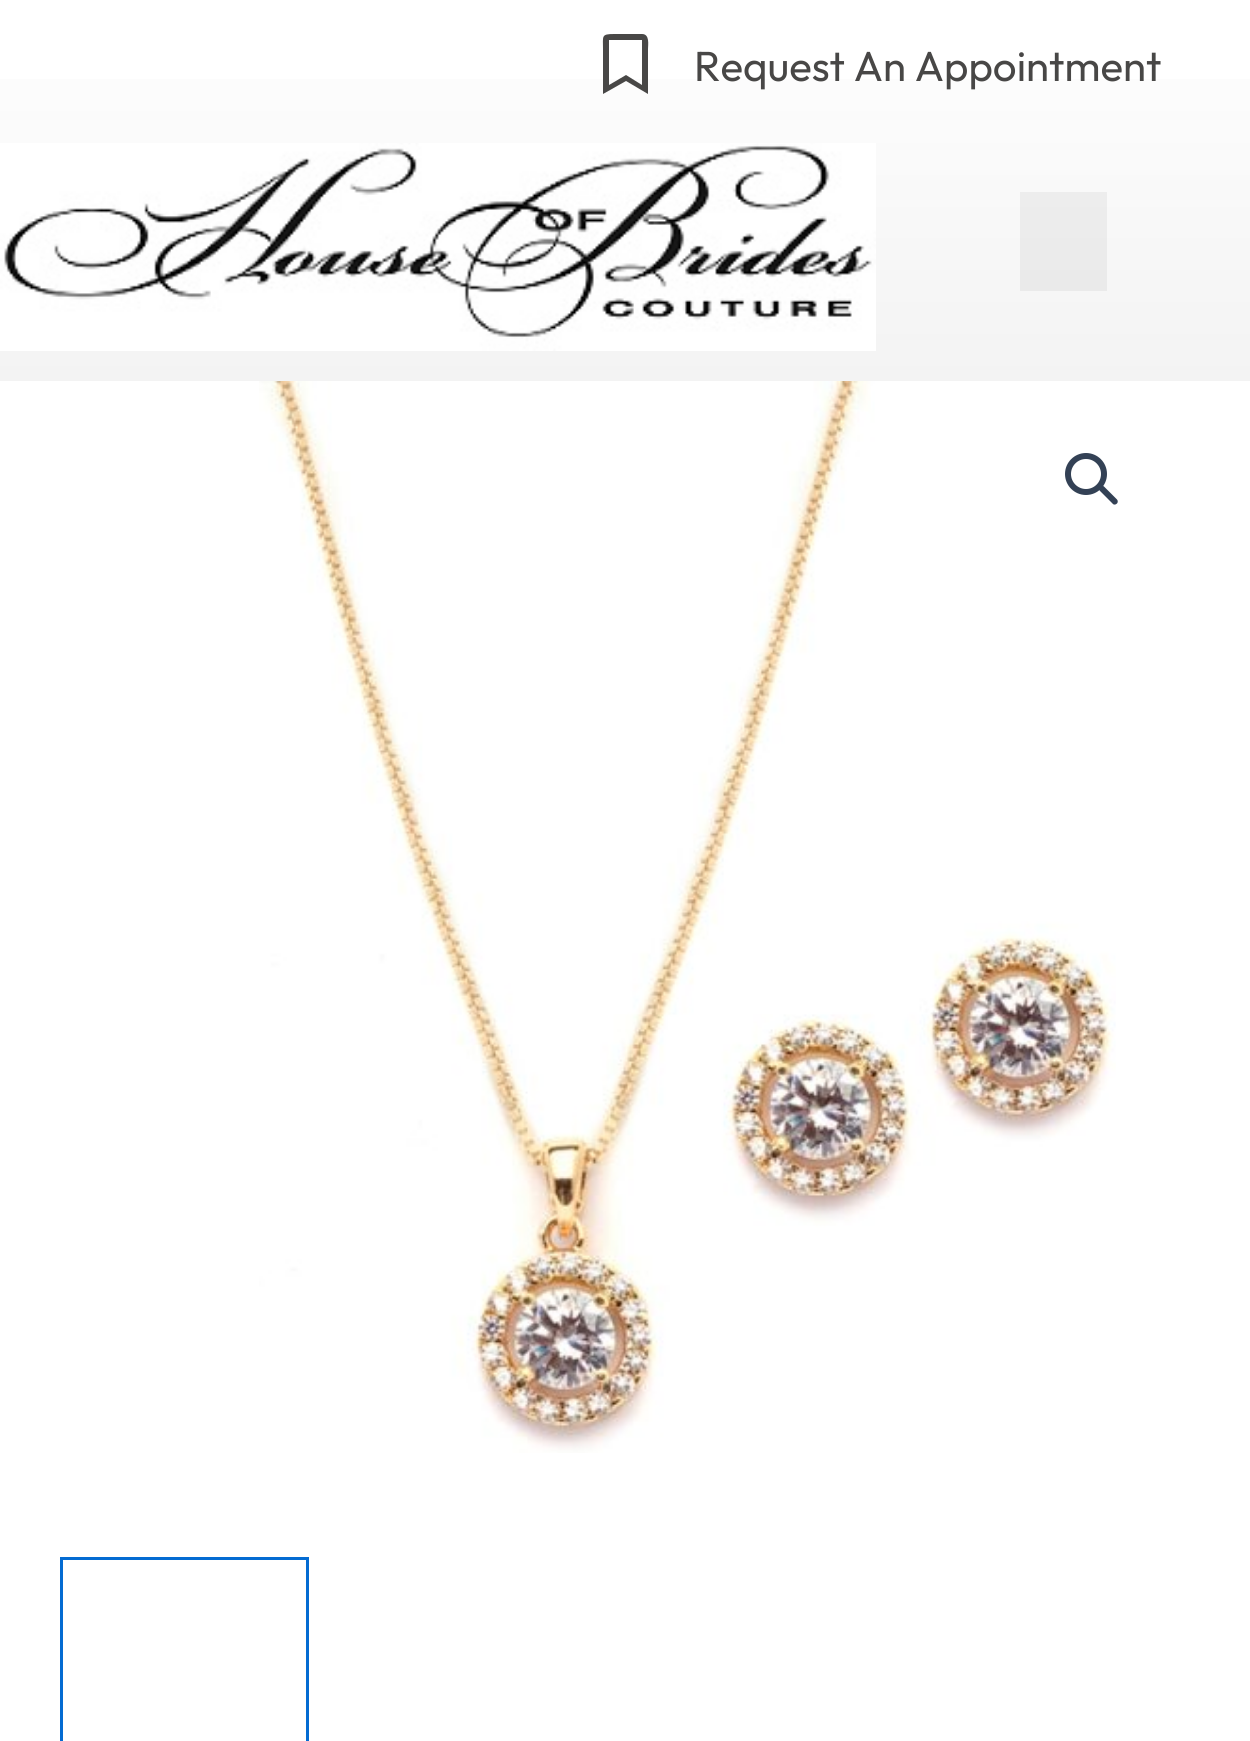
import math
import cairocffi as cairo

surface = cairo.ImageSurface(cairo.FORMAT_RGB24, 1250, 1741)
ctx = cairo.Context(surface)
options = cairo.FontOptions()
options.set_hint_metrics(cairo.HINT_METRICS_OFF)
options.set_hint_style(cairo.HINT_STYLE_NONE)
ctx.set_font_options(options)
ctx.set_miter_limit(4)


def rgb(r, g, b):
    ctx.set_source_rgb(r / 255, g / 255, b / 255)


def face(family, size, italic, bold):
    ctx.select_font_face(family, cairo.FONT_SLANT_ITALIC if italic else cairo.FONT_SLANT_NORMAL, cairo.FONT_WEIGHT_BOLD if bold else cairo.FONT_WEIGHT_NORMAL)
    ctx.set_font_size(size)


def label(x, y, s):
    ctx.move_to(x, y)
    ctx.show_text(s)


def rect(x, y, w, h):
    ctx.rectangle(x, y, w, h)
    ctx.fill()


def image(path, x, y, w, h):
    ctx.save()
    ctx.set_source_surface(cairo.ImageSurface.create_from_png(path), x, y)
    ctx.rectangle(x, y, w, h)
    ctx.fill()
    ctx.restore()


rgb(255, 255, 255)
ctx.paint()
gradient = cairo.LinearGradient(626, 0, 626, 381)
gradient.add_color_stop_rgba(0, 1, 1, 1, 1)
gradient.add_color_stop_rgba(1, 0.953, 0.953, 0.953, 1)
ctx.set_source(gradient)
rect(0, 79, 1250, 302)
rgb(72, 71, 70)
ctx.new_path()
ctx.move_to(642, 34)
ctx.curve_to(650, 34, 648, 45, 648, 49)
ctx.line_to(648, 94)
ctx.line_to(626, 81)
ctx.line_to(603, 94)
ctx.line_to(603, 49)
ctx.curve_to(603, 36, 601, 34, 614, 34)
ctx.close_path()
ctx.move_to(642, 85)
ctx.line_to(642, 41)
ctx.line_to(642, 40)
ctx.line_to(609, 40)
ctx.line_to(609, 41)
ctx.line_to(609, 85)
ctx.line_to(626, 75)
ctx.close_path()
ctx.fill()
face('Outfit', 42, 0, 0)
label(694, 81, 'Request An Appointment')
image('image0.png', 0, 143, 876, 208)
ctx.set_source_rgba(0, 0, 0, 0.05)
rect(1020, 192, 87, 99)
image('image1.png', 259, 381, 857, 1072)
ctx.arc(1086, 474, 18, 0, 2 * math.pi)
rgb(51, 65, 85)
ctx.set_line_width(6)
ctx.stroke()
ctx.new_path()
ctx.move_to(1100, 486.5)
ctx.curve_to(1101, 485.5, 1103, 485.5, 1104, 486.5)
ctx.line_to(1117, 499.5)
ctx.curve_to(1118, 500.5, 1118, 502.5, 1117, 503.5)
ctx.curve_to(1115.5, 505, 1113.5, 505, 1112.5, 503.5)
ctx.line_to(1100, 491)
ctx.curve_to(1098.5, 489.5, 1098.5, 488, 1100, 486.5)
ctx.close_path()
ctx.fill()
ctx.rectangle(61.5, 1558.5, 246, 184)
rgb(4, 107, 210)
ctx.set_line_width(3)
ctx.stroke()
surface.write_to_png('render.png')
